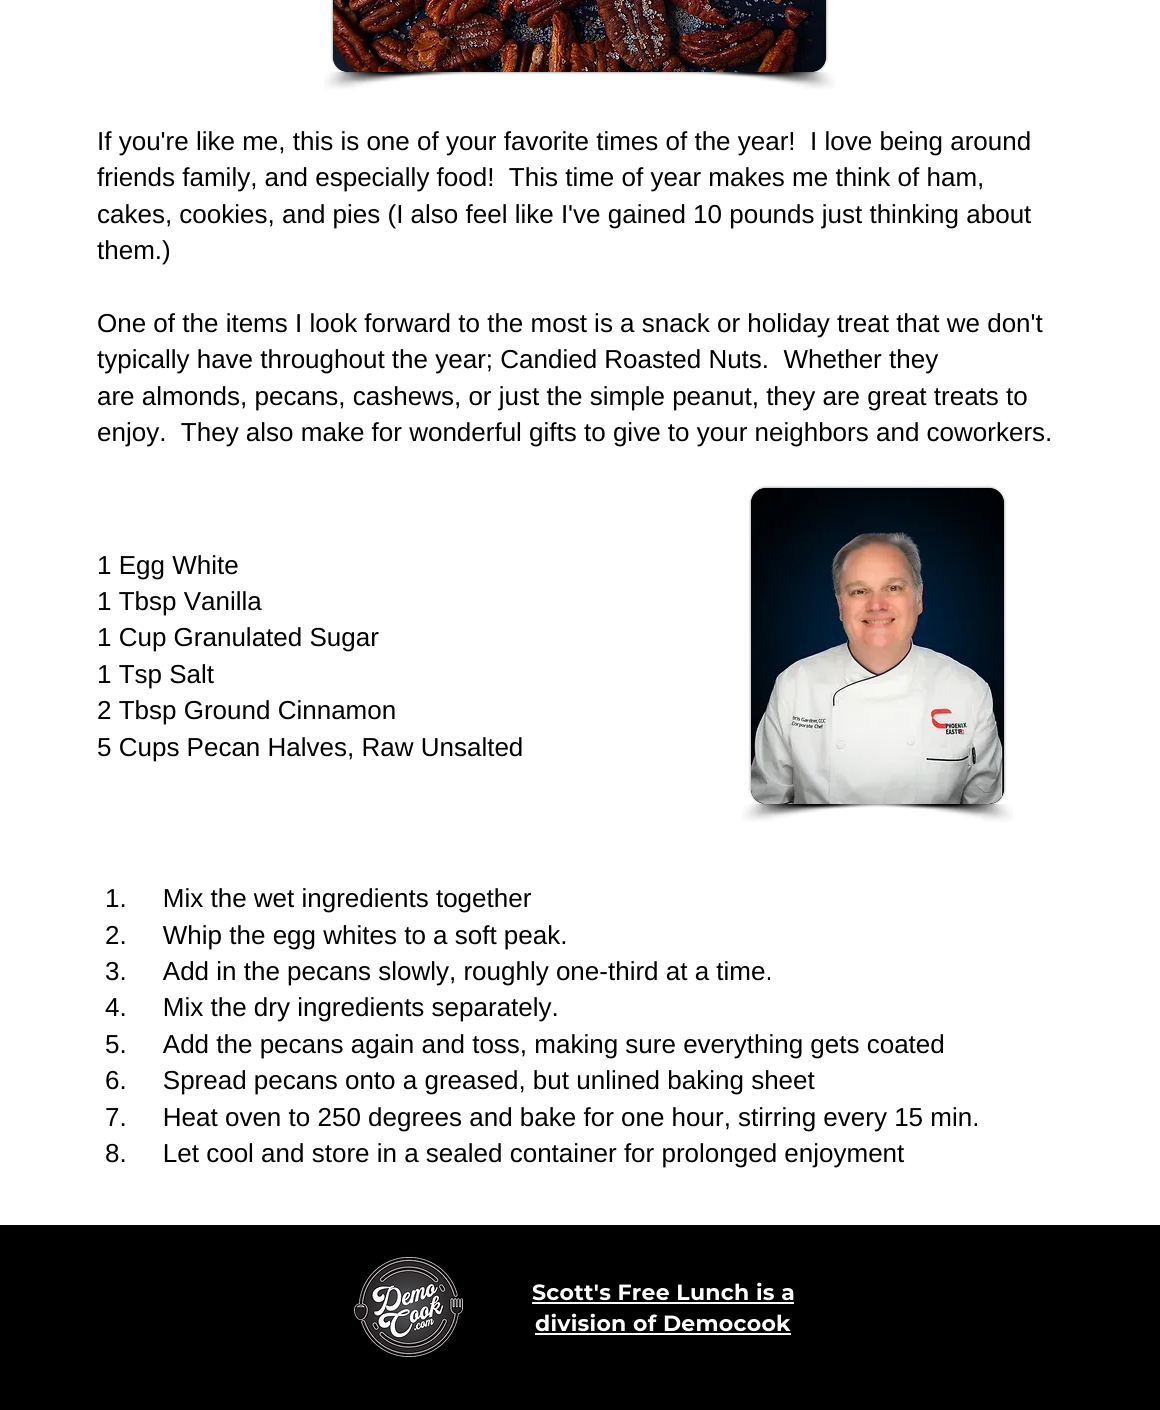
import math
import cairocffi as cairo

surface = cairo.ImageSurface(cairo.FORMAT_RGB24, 1160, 1410)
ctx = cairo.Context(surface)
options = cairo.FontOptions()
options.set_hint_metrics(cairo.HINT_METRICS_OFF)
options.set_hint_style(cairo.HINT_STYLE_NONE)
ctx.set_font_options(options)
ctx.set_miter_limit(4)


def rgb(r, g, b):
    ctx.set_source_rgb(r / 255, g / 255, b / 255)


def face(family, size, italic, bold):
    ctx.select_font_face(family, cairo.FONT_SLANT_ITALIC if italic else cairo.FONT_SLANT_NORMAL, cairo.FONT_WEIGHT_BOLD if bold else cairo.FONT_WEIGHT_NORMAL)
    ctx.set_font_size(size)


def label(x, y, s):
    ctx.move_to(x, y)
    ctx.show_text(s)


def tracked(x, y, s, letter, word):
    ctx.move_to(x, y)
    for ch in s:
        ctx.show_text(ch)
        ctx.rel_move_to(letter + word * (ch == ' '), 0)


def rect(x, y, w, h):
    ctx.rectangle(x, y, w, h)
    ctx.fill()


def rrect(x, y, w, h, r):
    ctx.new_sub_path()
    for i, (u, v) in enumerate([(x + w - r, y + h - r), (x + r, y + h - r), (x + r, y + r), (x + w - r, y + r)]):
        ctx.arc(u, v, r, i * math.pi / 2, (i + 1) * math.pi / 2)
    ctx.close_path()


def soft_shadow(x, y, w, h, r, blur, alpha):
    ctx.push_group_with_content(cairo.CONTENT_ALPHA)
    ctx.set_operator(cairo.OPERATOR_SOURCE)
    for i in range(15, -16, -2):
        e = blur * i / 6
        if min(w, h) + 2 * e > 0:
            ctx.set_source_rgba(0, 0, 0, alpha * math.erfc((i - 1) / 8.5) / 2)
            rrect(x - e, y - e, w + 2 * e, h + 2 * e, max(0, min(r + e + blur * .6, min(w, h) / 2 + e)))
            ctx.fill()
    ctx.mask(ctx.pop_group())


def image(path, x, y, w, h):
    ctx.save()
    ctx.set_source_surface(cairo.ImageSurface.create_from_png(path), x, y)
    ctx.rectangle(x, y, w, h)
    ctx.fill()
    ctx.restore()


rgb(255, 255, 255)
ctx.paint()
rgb(0, 0, 0)
soft_shadow(333, -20, 493, 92, 15, 1.5, 0.5)
rgb(0, 0, 0)
rrect(333, -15, 493, 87, 15)
ctx.fill()
image('image0.png', 333, 0, 493, 72)
image('image1.png', 324, 72, 154, 18)
image('image2.png', 681, 72, 154, 18)
face('Liberation Sans', 26, 0, 0)
label(97, 150, 'If you\'re like me, this is one of your favorite times of the year!  I love being around')
label(97, 186, 'friends family, and especially food!  This time of year makes me think of ham,')
label(97, 223, 'cakes, cookies, and pies (I also feel like I\'ve gained 10 pounds just thinking about')
label(97, 259, 'them.)')
label(97, 332, 'One of the items I look forward to the most is a snack or holiday treat that we don\'t')
label(97, 368, 'typically have throughout the year; Candied Roasted Nuts.  Whether they')
label(97, 405, 'are almonds, pecans, cashews, or just the simple peanut, they are great treats to')
label(97, 441, 'enjoy.  They also make for wonderful gifts to give to your neighbors and coworkers.')
label(97, 574, '1 Egg White')
label(97, 610, '1 Tbsp Vanilla')
label(97, 646, '1 Cup Granulated Sugar')
label(97, 683, '1 Tsp Salt')
label(97, 719, '2 Tbsp Ground Cinnamon')
label(97, 756, '5 Cups Pecan Halves, Raw Unsalted')
rgb(0, 0, 0)
soft_shadow(751, 488, 253, 316, 15, 1.5, 0.5)
rgb(0, 0, 0)
rrect(751, 488, 253, 316, 15)
ctx.fill()
image('image3.png', 751, 488, 253, 316)
image('image1.png', 742, 804, 154, 18)
image('image4.png', 864, 804, 149, 18)
label(105, 907, '1.     Mix the wet ingredients together')
label(105, 944, '2.     Whip the egg whites to a soft peak.')
label(105, 980, '3.     Add in the pecans slowly, roughly one-third at a time.')
label(105, 1016, '4.     Mix the dry ingredients separately.')
label(105, 1053, '5.     Add the pecans again and toss, making sure everything gets coated')
label(105, 1089, '6.     Spread pecans onto a greased, but unlined baking sheet')
label(105, 1126, '7.     Heat oven to 250 degrees and bake for one hour, stirring every 15 min.')
label(105, 1162, '8.     Let cool and store in a sealed container for prolonged enjoyment')
rect(0, 1225, 1160, 185)
image('image5.png', 354, 1257, 109, 100)
face('Montserrat', 22, 0, 1)
rgb(255, 255, 255)
tracked(532, 1300, 'Scott\'s Free Lunch is a', 0.25, 0)
rect(532, 1302, 262, 2)
tracked(535, 1331, 'division of Democook', 0.25, 0)
rect(535, 1333, 256, 2)
surface.write_to_png('render.png')
